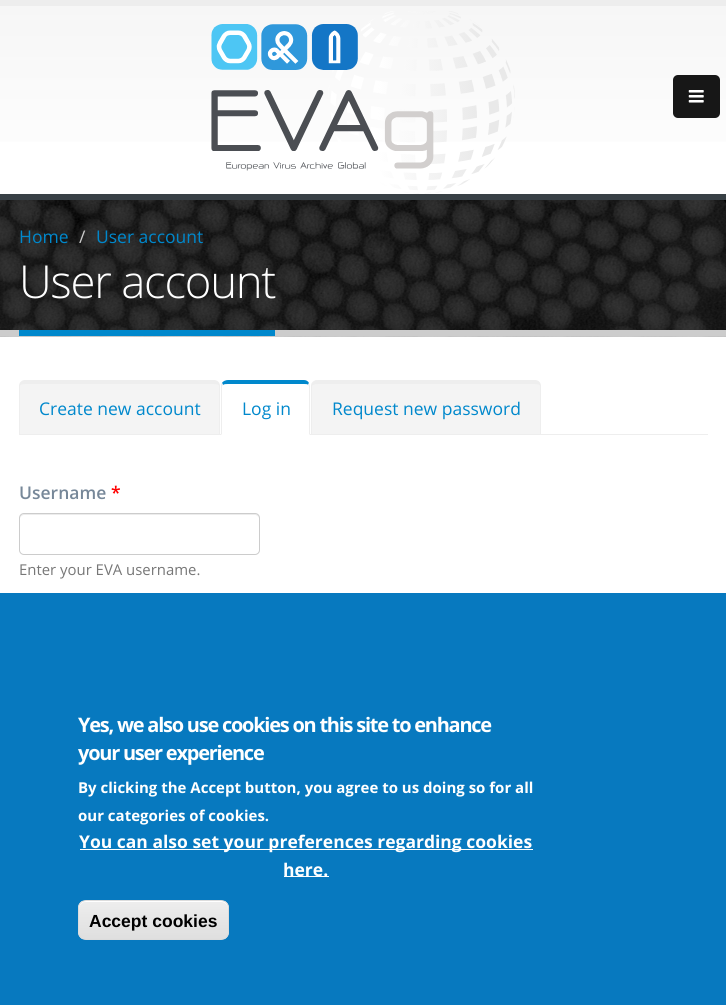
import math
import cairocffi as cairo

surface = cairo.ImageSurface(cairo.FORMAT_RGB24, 726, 1005)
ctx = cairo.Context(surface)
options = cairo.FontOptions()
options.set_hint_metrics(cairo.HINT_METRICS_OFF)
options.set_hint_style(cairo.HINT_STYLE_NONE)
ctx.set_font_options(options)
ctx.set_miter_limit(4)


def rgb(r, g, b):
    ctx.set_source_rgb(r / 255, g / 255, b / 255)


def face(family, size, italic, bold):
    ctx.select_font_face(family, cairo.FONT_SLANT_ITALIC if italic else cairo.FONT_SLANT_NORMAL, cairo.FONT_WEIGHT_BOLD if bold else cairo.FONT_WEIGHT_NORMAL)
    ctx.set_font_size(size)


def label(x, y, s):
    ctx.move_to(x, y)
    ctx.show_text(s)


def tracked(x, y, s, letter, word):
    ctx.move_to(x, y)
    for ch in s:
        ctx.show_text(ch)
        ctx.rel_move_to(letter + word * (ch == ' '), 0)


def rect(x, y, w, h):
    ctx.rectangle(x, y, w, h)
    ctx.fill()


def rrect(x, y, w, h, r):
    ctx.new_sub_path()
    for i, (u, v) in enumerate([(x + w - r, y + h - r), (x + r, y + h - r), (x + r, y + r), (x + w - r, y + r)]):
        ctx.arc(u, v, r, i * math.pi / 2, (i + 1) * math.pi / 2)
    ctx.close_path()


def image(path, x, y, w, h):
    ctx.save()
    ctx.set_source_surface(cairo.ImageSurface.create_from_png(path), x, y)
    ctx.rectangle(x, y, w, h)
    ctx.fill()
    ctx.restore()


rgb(255, 255, 255)
ctx.paint()
gradient = cairo.LinearGradient(363, 6.2, 363, 194)
gradient.add_color_stop_rgba(0, 0.965, 0.965, 0.965, 1)
gradient.add_color_stop_rgba(1, 1, 1, 1, 1)
ctx.set_source(gradient)
rect(0, 6, 726, 136)
rgb(237, 237, 237)
rect(0, 0, 726, 6)
image('image0.png', 211, 11, 304, 183)
rgb(23, 23, 23)
rrect(673, 75, 47, 43, 5)
ctx.fill()
image('image1.png', 688, 90, 16, 13)
image('image2.png', 0, 200, 726, 137)
rgb(56, 64, 69)
rect(0, 194, 726, 6)
rgb(204, 204, 204)
rect(0, 330, 726, 6)
face('Open Sans', 17.5, 0, 0)
rgb(0, 136, 204)
label(19, 243, 'Home')
rgb(204, 204, 204)
label(79, 243, '/')
rgb(0, 136, 204)
label(96, 243, 'User account')
rect(19, 330, 256, 6)
face('Open Sans Light', 45.5, 0, 0)
rgb(255, 255, 255)
tracked(19, 298, 'User account', -1.25, 0)
rgb(238, 238, 238)
rect(19, 434, 689, 1)
rgb(244, 244, 244)
ctx.new_path()
ctx.move_to(25, 380)
ctx.line_to(214, 380)
ctx.curve_to(217.5, 380, 220, 382.5, 220, 386)
ctx.line_to(220, 434)
ctx.line_to(19, 434)
ctx.line_to(19, 386)
ctx.curve_to(19, 382.5, 21.5, 380, 25, 380)
ctx.close_path()
ctx.fill()
rgb(238, 238, 238)
ctx.set_fill_rule(cairo.FILL_RULE_EVEN_ODD)
ctx.new_path()
ctx.move_to(25, 380)
ctx.line_to(214, 380)
ctx.curve_to(217, 380, 220, 383, 220, 386)
ctx.line_to(220, 434)
ctx.line_to(19, 434)
ctx.line_to(19, 386)
ctx.curve_to(19, 383, 22, 380, 25, 380)
ctx.close_path()
ctx.move_to(25, 384)
ctx.line_to(214, 384)
ctx.curve_to(217, 384, 219, 385, 219, 386)
ctx.line_to(219, 434)
ctx.line_to(20, 434)
ctx.line_to(20, 386)
ctx.curve_to(20, 385, 22, 384, 25, 384)
ctx.close_path()
ctx.fill()
face('Open Sans', 17.5, 0, 0)
rgb(0, 136, 204)
label(39, 415, 'Create new account')
rgb(255, 255, 255)
ctx.new_path()
ctx.move_to(227, 380)
ctx.line_to(304, 380)
ctx.curve_to(307.5, 380, 310, 382.5, 310, 386)
ctx.line_to(310, 435)
ctx.line_to(221, 435)
ctx.line_to(221, 386)
ctx.curve_to(221, 382.5, 223.5, 380, 227, 380)
ctx.close_path()
ctx.fill()
rgb(0, 136, 204)
ctx.set_fill_rule(cairo.FILL_RULE_WINDING)
ctx.new_path()
ctx.move_to(228, 380)
ctx.curve_to(226, 380, 223, 381, 222, 383)
ctx.line_to(223, 385)
ctx.curve_to(224, 384, 226, 384, 228, 384)
ctx.line_to(304, 384)
ctx.curve_to(306, 384, 308, 384, 308, 385)
ctx.line_to(309, 383)
ctx.curve_to(308, 381, 306, 380, 304, 380)
ctx.close_path()
ctx.fill()
rgb(238, 238, 238)
ctx.new_path()
ctx.move_to(310, 435)
ctx.line_to(310, 386)
ctx.line_to(309, 383)
ctx.line_to(308, 385)
ctx.line_to(309, 386)
ctx.line_to(309, 434)
ctx.close_path()
ctx.fill()
ctx.new_path()
ctx.move_to(221, 435)
ctx.line_to(221, 384)
ctx.line_to(222, 383)
ctx.line_to(223, 385)
ctx.line_to(222, 386)
ctx.line_to(222, 434)
ctx.close_path()
ctx.fill()
rgb(0, 136, 204)
label(242, 415, 'Log in')
rgb(244, 244, 244)
ctx.new_path()
ctx.move_to(317, 380)
ctx.line_to(535, 380)
ctx.curve_to(538.5, 380, 541, 382.5, 541, 386)
ctx.line_to(541, 434)
ctx.line_to(311, 434)
ctx.line_to(311, 386)
ctx.curve_to(311, 382.5, 313.5, 380, 317, 380)
ctx.close_path()
ctx.fill()
rgb(238, 238, 238)
ctx.set_fill_rule(cairo.FILL_RULE_EVEN_ODD)
ctx.new_path()
ctx.move_to(318, 380)
ctx.line_to(535, 380)
ctx.curve_to(538, 380, 541, 383, 541, 386)
ctx.line_to(541, 434)
ctx.line_to(311, 434)
ctx.line_to(311, 386)
ctx.curve_to(311, 383, 314, 380, 318, 380)
ctx.close_path()
ctx.move_to(318, 384)
ctx.line_to(535, 384)
ctx.curve_to(538, 384, 540, 385, 540, 386)
ctx.line_to(540, 434)
ctx.line_to(312, 434)
ctx.line_to(312, 386)
ctx.curve_to(312, 385, 315, 384, 318, 384)
ctx.close_path()
ctx.fill()
rgb(0, 136, 204)
label(332, 415, 'Request new password')
face('Open Sans SemiBold', 17.5, 0, 0)
rgb(119, 136, 153)
label(19, 499, 'Username')
rgb(255, 0, 0)
label(111, 499, '*')
rgb(236, 236, 236)
ctx.set_fill_rule(cairo.FILL_RULE_WINDING)
ctx.new_path()
ctx.move_to(24, 515)
ctx.line_to(255, 515)
ctx.curve_to(257, 515, 259, 517, 259, 519)
ctx.curve_to(259, 516, 258, 514, 255, 514)
ctx.line_to(24, 514)
ctx.curve_to(21, 514, 20, 516, 20, 519)
ctx.curve_to(20, 517, 22, 515, 24, 515)
ctx.close_path()
ctx.fill()
rrect(19.5, 513.5, 240, 41, 4.5)
rgb(204, 204, 204)
ctx.set_line_width(1)
ctx.stroke()
face('Open Sans', 14.9, 0, 0)
rgb(119, 119, 119)
label(19, 575, 'Enter your EVA username.')
rgb(7, 121, 191)
rect(0, 593, 726, 412)
face('Open Sans', 20, 0, 1)
rgb(255, 255, 255)
tracked(78, 732, 'Yes, we also use cookies on this site to enhance', -1.25, 0)
tracked(78, 760, 'your user experience', -1.25, 0)
face('Open Sans', 15, 0, 1)
label(78, 793, 'By clicking the Accept button, you agree to us doing so for all')
label(78, 821, 'our categories of cookies.')
rect(80, 849, 453, 1)
face('Open Sans', 17.5, 0, 1)
label(79, 848, 'You can also set your preferences regarding cookies')
rect(284, 876, 45, 1)
label(283, 876, 'here.')
ctx.save()
rrect(78, 900, 151, 40, 8)
ctx.clip()
gradient = cairo.LinearGradient(153, 901, 153, 939)
gradient.add_color_stop_rgba(0.05, 0.929, 0.929, 0.929, 1)
gradient.add_color_stop_rgba(1, 0.875, 0.875, 0.875, 1)
ctx.set_source(gradient)
rect(78, 901, 151, 38)
ctx.restore()
ctx.new_path()
ctx.move_to(85, 902)
ctx.line_to(221, 902)
ctx.curve_to(225, 902, 228, 905, 228, 909)
ctx.line_to(228, 907)
ctx.curve_to(228, 904, 225, 901, 222, 901)
ctx.line_to(85, 901)
ctx.curve_to(82, 901, 79, 904, 79, 907)
ctx.line_to(79, 909)
ctx.curve_to(79, 905, 82, 902, 85, 902)
ctx.close_path()
ctx.fill()
rrect(78.5, 900.5, 150, 39, 7.5)
rgb(220, 220, 220)
ctx.stroke()
face('Liberation Sans', 17.5, 0, 1)
rgb(0, 0, 0)
label(89, 927, 'Accept cookies')
surface.write_to_png('render.png')
